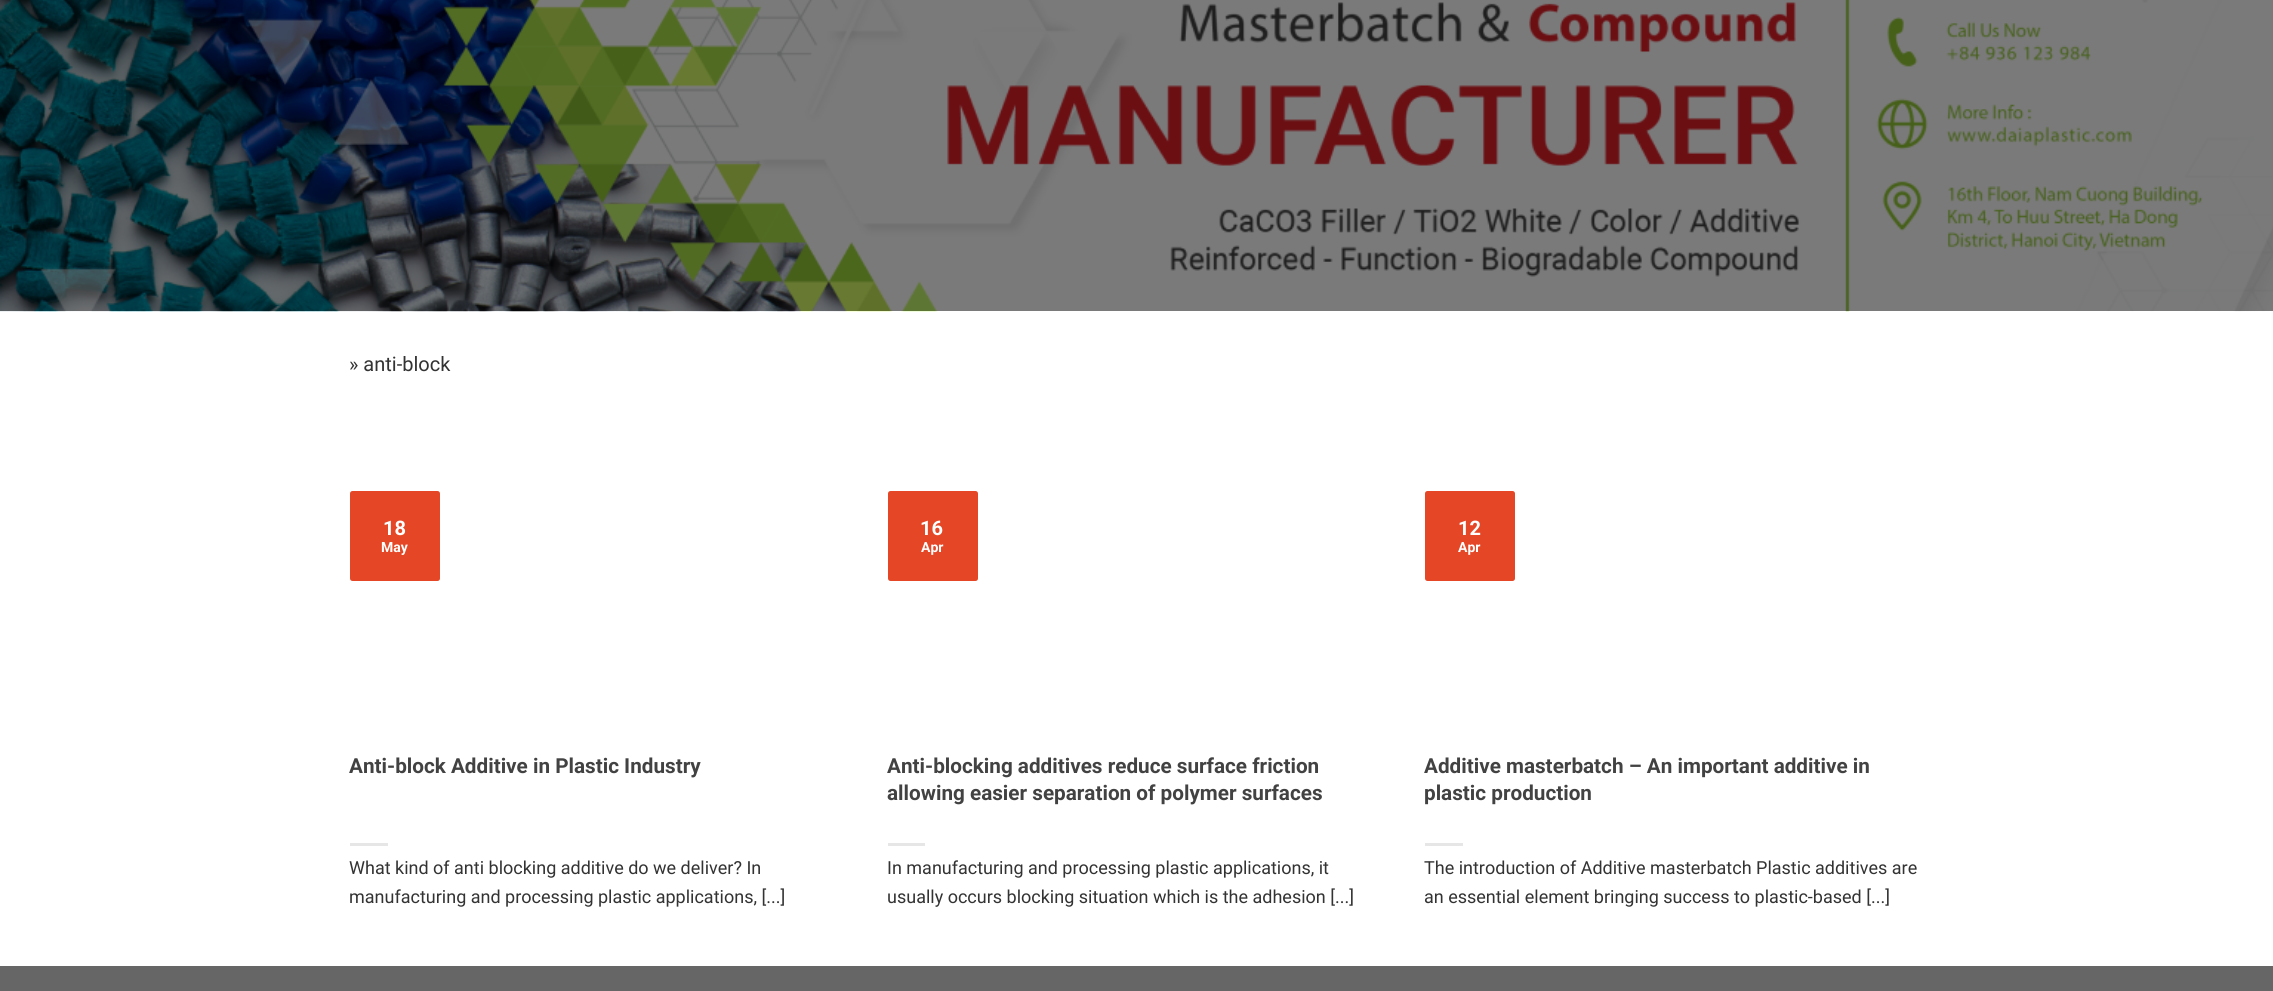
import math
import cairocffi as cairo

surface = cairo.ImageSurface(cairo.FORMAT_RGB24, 2273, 991)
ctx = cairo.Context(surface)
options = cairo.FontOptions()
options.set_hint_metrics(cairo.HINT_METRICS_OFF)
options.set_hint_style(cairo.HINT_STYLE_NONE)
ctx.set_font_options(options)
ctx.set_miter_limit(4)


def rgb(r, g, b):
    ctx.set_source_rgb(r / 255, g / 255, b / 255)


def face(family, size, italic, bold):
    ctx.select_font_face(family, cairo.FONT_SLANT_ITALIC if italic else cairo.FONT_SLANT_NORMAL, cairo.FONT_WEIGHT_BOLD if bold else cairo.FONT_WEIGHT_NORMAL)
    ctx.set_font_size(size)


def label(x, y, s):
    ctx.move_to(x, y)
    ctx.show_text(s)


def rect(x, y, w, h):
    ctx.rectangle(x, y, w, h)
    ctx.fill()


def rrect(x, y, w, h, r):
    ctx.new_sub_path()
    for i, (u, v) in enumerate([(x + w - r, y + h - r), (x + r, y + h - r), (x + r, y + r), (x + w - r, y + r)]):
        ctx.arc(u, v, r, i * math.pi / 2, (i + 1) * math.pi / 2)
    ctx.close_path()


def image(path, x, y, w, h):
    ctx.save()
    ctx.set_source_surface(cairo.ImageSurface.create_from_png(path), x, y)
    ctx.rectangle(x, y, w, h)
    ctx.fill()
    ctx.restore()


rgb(255, 255, 255)
ctx.paint()
image('image0.png', 0, 0, 2273, 312)
face('Roboto', 20, 0, 0)
rgb(51, 51, 51)
label(349, 371, '» anti-block')
rgb(229, 71, 38)
rrect(350, 491, 90, 90, 2.5)
ctx.fill()
face('Roboto', 20, 0, 1)
rgb(255, 255, 255)
label(383, 535, '18')
face('Roboto', 14, 0, 1)
label(381, 552, 'May')
face('Roboto', 20.7, 0, 1)
rgb(66, 66, 66)
label(349, 773, 'Anti-block Additive in Plastic Industry')
rgb(230, 230, 230)
rect(350, 843, 38, 3)
face('Roboto', 18, 0, 0)
rgb(51, 51, 51)
label(349, 874, 'What kind of anti blocking additive do we deliver? In')
label(349, 903, 'manufacturing and processing plastic applications, [...]')
rgb(229, 71, 38)
rrect(888, 491, 90, 90, 2.5)
ctx.fill()
face('Roboto', 20, 0, 1)
rgb(255, 255, 255)
label(920, 535, '16')
face('Roboto', 14, 0, 1)
label(921, 552, 'Apr')
face('Roboto', 20.7, 0, 1)
rgb(66, 66, 66)
label(887, 773, 'Anti-blocking additives reduce surface friction')
label(887, 800, 'allowing easier separation of polymer surfaces')
rgb(230, 230, 230)
rect(888, 843, 37, 3)
face('Roboto', 18, 0, 0)
rgb(51, 51, 51)
label(887, 874, 'In manufacturing and processing plastic applications, it')
label(887, 903, 'usually occurs blocking situation which is the adhesion [...]')
rgb(229, 71, 38)
rrect(1425, 491, 90, 90, 2.5)
ctx.fill()
face('Roboto', 20, 0, 1)
rgb(255, 255, 255)
label(1458, 535, '12')
face('Roboto', 14, 0, 1)
label(1458, 552, 'Apr')
face('Roboto', 20.7, 0, 1)
rgb(66, 66, 66)
label(1424, 773, 'Additive masterbatch – An important additive in')
label(1424, 800, 'plastic production')
rgb(230, 230, 230)
rect(1425, 843, 38, 3)
face('Roboto', 18, 0, 0)
rgb(51, 51, 51)
label(1424, 874, 'The introduction of Additive masterbatch Plastic additives are')
label(1424, 903, 'an essential element bringing success to plastic-based [...]')
rgb(102, 102, 102)
rect(0, 966, 2273, 25)
surface.write_to_png('render.png')
